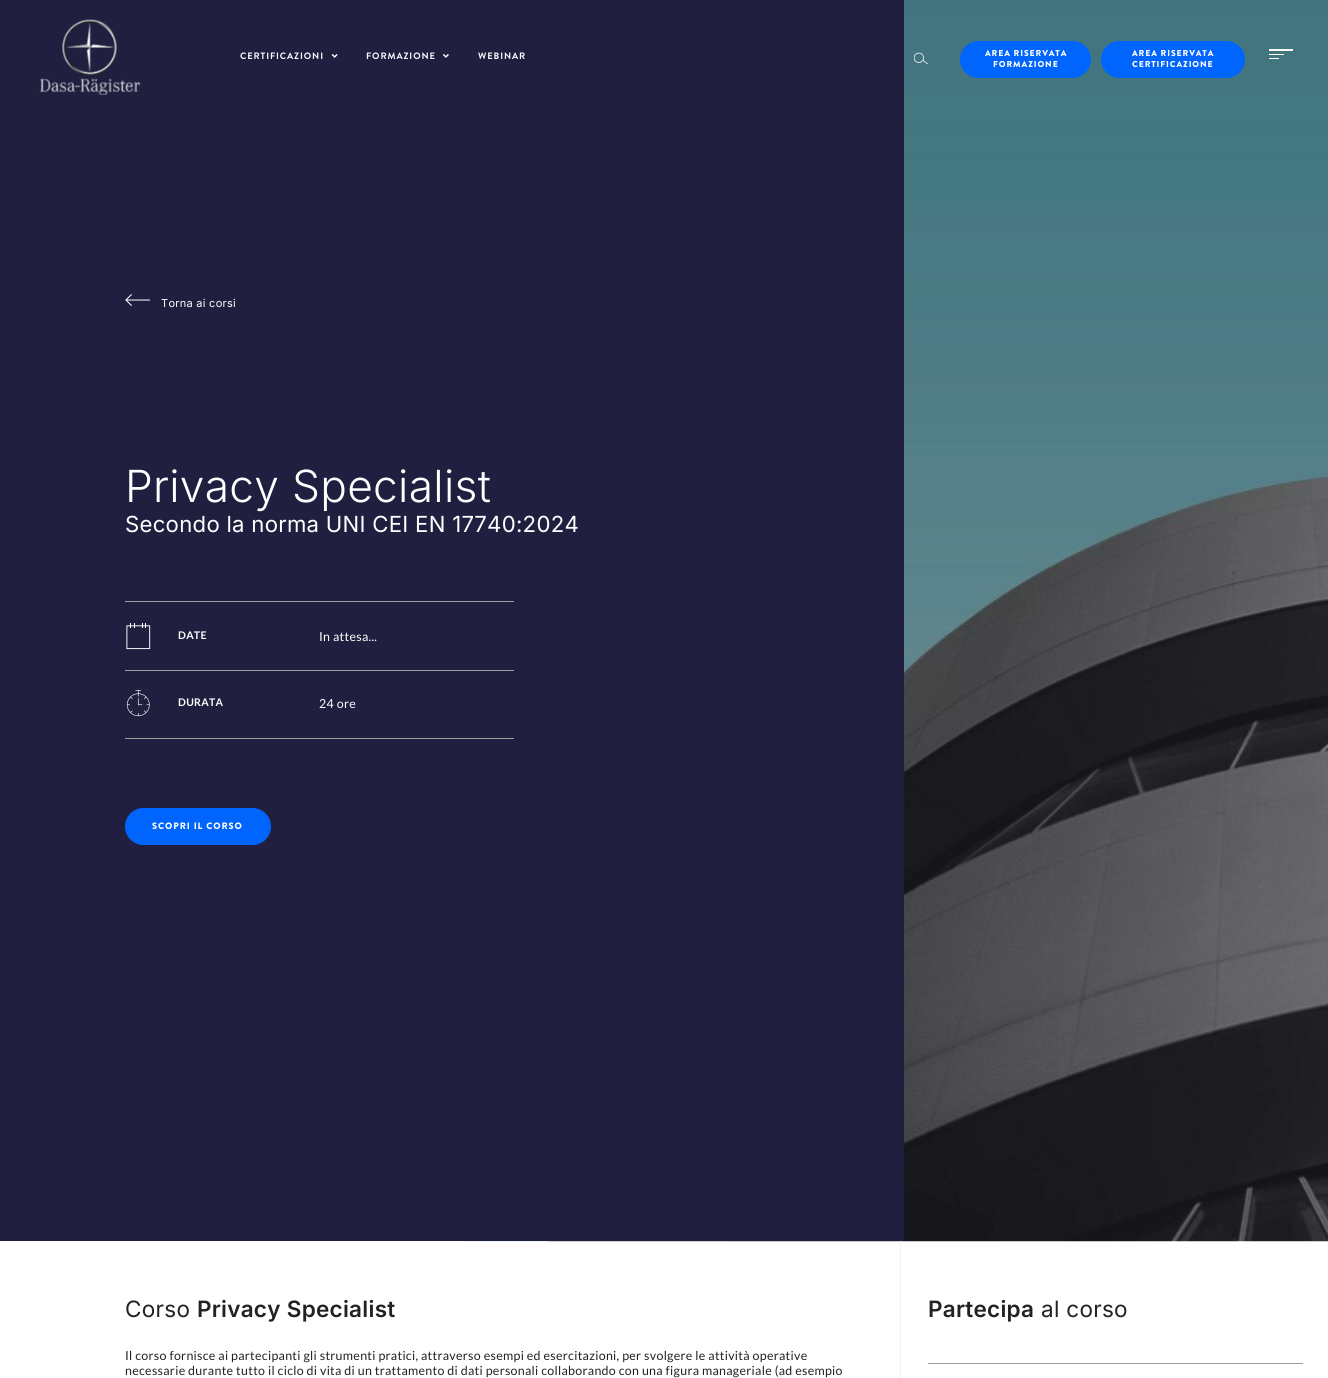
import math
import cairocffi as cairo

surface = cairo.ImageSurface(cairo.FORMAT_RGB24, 1328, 1378)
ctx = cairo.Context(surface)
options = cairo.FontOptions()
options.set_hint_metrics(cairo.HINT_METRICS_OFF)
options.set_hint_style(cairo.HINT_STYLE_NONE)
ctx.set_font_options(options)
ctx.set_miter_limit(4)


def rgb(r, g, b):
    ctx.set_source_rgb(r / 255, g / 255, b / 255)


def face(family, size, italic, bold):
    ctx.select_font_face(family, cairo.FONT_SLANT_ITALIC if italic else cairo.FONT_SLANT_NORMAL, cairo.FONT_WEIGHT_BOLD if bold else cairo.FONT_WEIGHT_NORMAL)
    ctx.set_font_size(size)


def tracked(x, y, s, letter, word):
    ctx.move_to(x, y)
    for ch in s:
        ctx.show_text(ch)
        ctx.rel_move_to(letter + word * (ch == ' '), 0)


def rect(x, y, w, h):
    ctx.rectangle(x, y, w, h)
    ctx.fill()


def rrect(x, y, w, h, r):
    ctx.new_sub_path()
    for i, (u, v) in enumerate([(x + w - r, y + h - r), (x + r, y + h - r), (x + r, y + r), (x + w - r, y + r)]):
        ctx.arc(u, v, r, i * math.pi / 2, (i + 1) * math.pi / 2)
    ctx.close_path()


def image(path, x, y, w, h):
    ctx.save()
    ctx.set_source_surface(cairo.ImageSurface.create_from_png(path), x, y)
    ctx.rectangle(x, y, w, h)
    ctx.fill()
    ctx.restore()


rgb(255, 255, 255)
ctx.paint()
image('image4.png', 465, 0, 863, 1242)
rgb(32, 31, 63)
rect(0, 0, 904, 1241)
image('image0.png', 39, 19, 101, 76)
face('Brandon Grotesque', 9.25, 0, 1)
rgb(255, 255, 255)
tracked(240, 59, 'CERTIFICAZIONI', 0.9, 0)
image('image1.png', 331, 54, 7, 4)
tracked(366, 59, 'FORMAZIONE', 0.9, 0)
image('image2.png', 443, 54, 6, 4)
tracked(478, 59, 'WEBINAR', 0.9, 0)
image('image3.png', 914, 52, 14, 13)
rgb(0, 101, 253)
rrect(960.5, 41.5, 130, 36, 18)
ctx.fill_preserve()
ctx.set_line_width(1)
ctx.stroke()
face('Brandon Grotesque Black', 8.6, 0, 0)
rgb(255, 255, 255)
tracked(985, 56, 'AREA RISERVATA', 0.9, 0)
tracked(993, 67, 'FORMAZIONE', 0.9, 0)
rgb(0, 101, 253)
rrect(1101.5, 41.5, 143, 36, 18)
ctx.fill_preserve()
ctx.stroke()
rgb(255, 255, 255)
tracked(1132, 56, 'AREA RISERVATA', 0.9, 0)
tracked(1132, 67, 'CERTIFICAZIONE', 0.9, 0)
rect(1269, 49, 24, 2)
rect(1269, 54, 15, 1)
rect(1269, 58, 10, 1)
image('image5.png', 125, 294, 25, 12)
face('Inter', 11, 0, 0)
tracked(161, 307, 'Torna ai corsi', 0.28, 0)
face('Inter Light', 44.25, 0, 0)
tracked(125, 502, 'Privacy Specialist', 0.28, 0)
face('Inter', 22.15, 0, 0)
tracked(125, 532, 'Secondo la norma UNI CEI EN 17740:2024', 0.28, 0)
rgb(158, 158, 158)
rect(125, 601, 389, 1)
image('image6.png', 126, 623, 25, 27)
face('Lato', 10.5, 0, 1)
rgb(255, 255, 255)
tracked(178, 639, 'DATE', 0.28, 0)
face('Lato', 12.45, 0, 0)
tracked(319, 641, 'In attesa...', 0.28, 0)
rgb(158, 158, 158)
rect(125, 670, 389, 1)
rect(125, 738, 389, 1)
image('image7.png', 126, 690, 24, 27)
face('Lato', 10.5, 0, 1)
rgb(255, 255, 255)
tracked(178, 706, 'DURATA', 0.28, 0)
face('Lato', 12.45, 0, 0)
tracked(319, 708, '24 ore', 0.28, 0)
rgb(0, 101, 253)
rrect(125.5, 808.5, 145, 36, 18)
ctx.fill_preserve()
ctx.stroke()
face('Brandon Grotesque Black', 9.25, 0, 0)
rgb(255, 255, 255)
tracked(152, 829, 'SCOPRI IL CORSO', 0.9, 0)
face('Inter', 22.5, 0, 0)
rgb(34, 34, 34)
tracked(125, 1317, 'Corso', 0.28, 0)
face('Inter SemiBold', 22.5, 0, 0)
tracked(197, 1317, 'Privacy Specialist', 0.28, 0)
face('Lato', 12.45, 0, 0)
tracked(125, 1360, 'Il corso fornisce ai partecipanti gli strumenti pratici, attraverso esempi ed esercitazioni, per svolgere le attività operative', 0.28, 0)
tracked(125, 1375, 'necessarie durante tutto il ciclo di vita di un trattamento di dati personali collaborando con una figura manageriale (ad esempio', 0.28, 0)
rgb(241, 241, 241)
rect(900, 1241, 1, 137)
face('Inter SemiBold', 22.5, 0, 0)
rgb(34, 34, 34)
tracked(928, 1317, 'Partecipa', 0.28, 0)
face('Inter', 22.5, 0, 0)
tracked(1041, 1317, 'al corso', 0.28, 0)
rgb(158, 158, 158)
rect(928, 1363, 375, 1)
surface.write_to_png('render.png')
